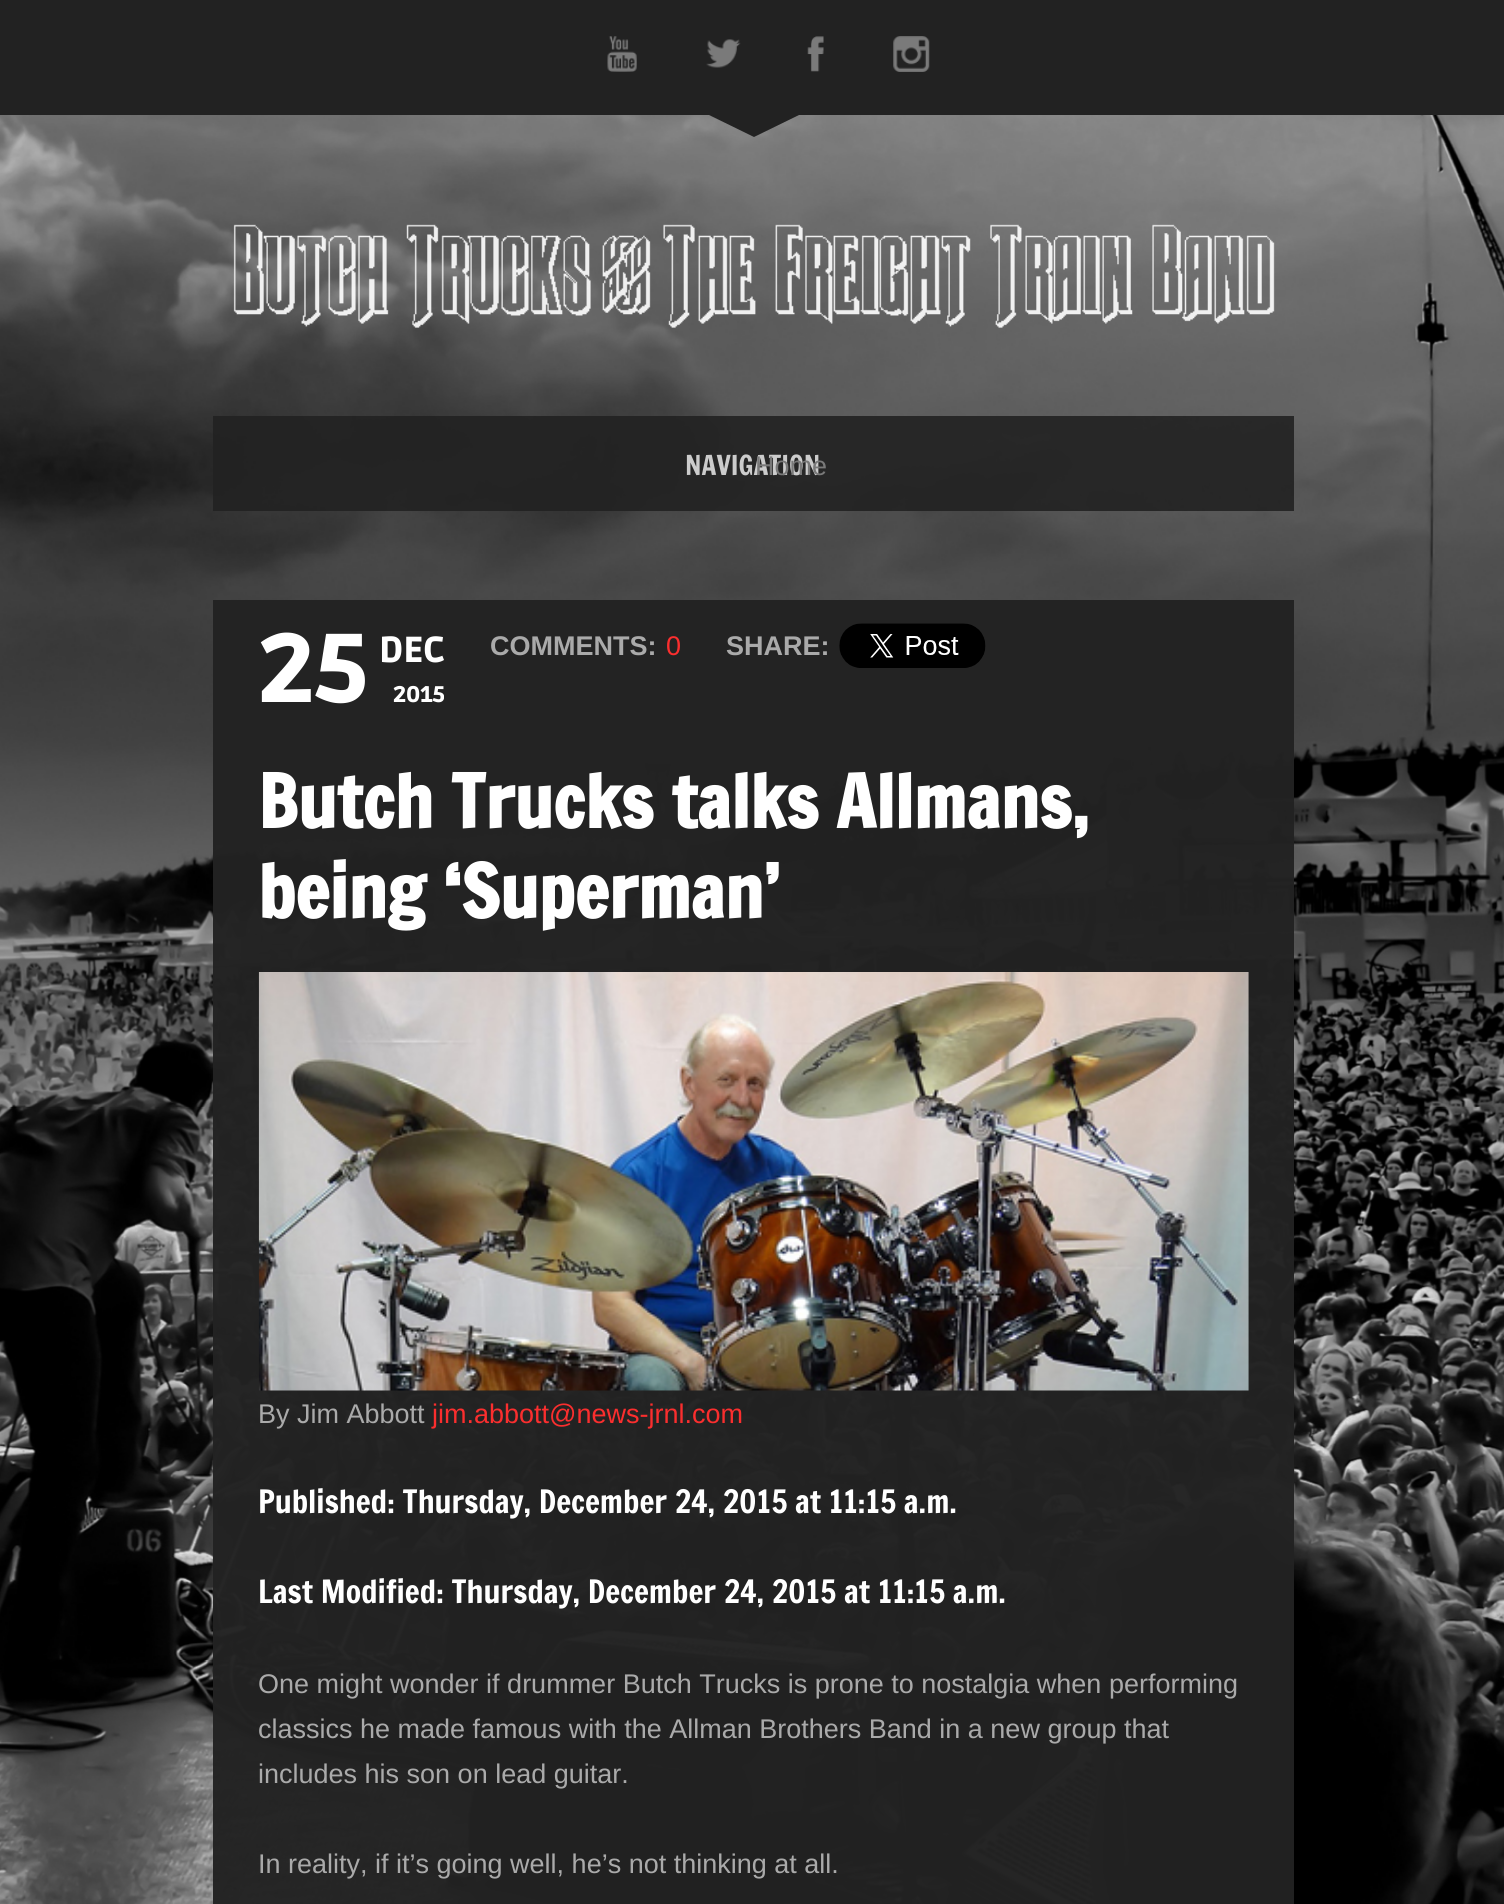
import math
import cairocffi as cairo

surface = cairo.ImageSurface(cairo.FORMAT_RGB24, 1504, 1904)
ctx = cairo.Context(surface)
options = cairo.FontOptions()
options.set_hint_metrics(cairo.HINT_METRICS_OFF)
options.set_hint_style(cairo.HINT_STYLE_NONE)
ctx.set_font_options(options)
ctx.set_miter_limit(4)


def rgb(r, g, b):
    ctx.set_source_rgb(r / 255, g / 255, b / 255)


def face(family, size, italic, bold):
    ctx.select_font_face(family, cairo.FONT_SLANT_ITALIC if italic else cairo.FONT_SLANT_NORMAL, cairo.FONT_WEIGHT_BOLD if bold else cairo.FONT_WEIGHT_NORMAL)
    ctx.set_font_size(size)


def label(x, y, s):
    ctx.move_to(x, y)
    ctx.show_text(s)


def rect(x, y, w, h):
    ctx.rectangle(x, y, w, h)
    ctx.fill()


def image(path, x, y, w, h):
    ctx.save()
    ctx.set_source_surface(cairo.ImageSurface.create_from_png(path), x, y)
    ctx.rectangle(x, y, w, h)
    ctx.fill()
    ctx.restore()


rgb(255, 255, 255)
ctx.paint()
image('image0.png', 0, 115, 1504, 1789)
rgb(34, 34, 34)
rect(0, 0, 1504, 115)
image('image1.png', 607, 36, 30, 36)
image('image2.png', 706, 39, 35, 29)
image('image3.png', 807, 36, 17, 36)
image('image4.png', 893, 36, 37, 36)
ctx.new_path()
ctx.move_to(709, 115)
ctx.line_to(799, 115)
ctx.line_to(754, 137)
ctx.close_path()
ctx.fill()
image('image5.png', 233, 224, 1042, 104)
ctx.set_source_rgba(0.133, 0.133, 0.133, 0.9)
rect(213, 416, 1081, 95)
face('Francois One', 27, 0, 0)
rgb(204, 204, 204)
label(685, 475, 'NAVIGATION')
face('Liberation Sans', 27, 0, 0)
rgb(121, 121, 121)
label(755, 475, 'Home')
ctx.set_source_rgba(0.133, 0.133, 0.133, 0.97)
rect(213, 600, 1081, 1304)
face('Ruda Black', 97, 0, 0)
rgb(255, 255, 255)
label(258, 702, '25')
face('Ruda Black', 36, 0, 0)
label(379, 662, 'DEC')
face('Ruda Black', 22.5, 0, 0)
label(393, 702, '2015')
face('Liberation Sans', 27, 0, 1)
rgb(170, 170, 170)
label(490, 655, 'COMMENTS:')
face('Liberation Sans', 27, 0, 0)
rgb(251, 46, 46)
label(666, 655, '0')
face('Liberation Sans', 27, 0, 1)
rgb(170, 170, 170)
label(726, 655, 'SHARE:')
image('image6.png', 839, 623, 147, 45)
face('Francois One', 72, 0, 1)
rgb(255, 255, 255)
label(258, 828, 'Butch Trucks talks Allmans,')
label(258, 918, 'being ‘Superman’')
image('image7.png', 258, 972, 991, 419)
face('Liberation Sans', 27, 0, 0)
rgb(170, 170, 170)
label(258, 1423, 'By Jim Abbott')
rgb(251, 46, 46)
label(432, 1423, 'jim.abbott@news-jrnl.com')
face('Francois One', 31.5, 0, 0)
rgb(255, 255, 255)
label(258, 1513, 'Published: Thursday, December 24, 2015 at 11:15 a.m.')
label(258, 1603, 'Last Modified: Thursday, December 24, 2015 at 11:15 a.m.')
face('Liberation Sans', 27, 0, 0)
rgb(170, 170, 170)
label(258, 1693, 'One might wonder if drummer Butch Trucks is prone to nostalgia when performing')
ctx.save()
ctx.rectangle(259, 623, 990, 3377)
ctx.clip()
label(258, 1738, 'classics he made famous with the Allman Brothers Band in a new group that')
ctx.restore()
label(258, 1783, 'includes his son on lead guitar.')
label(258, 1873, 'In reality, if it’s going well, he’s not thinking at all.')
surface.write_to_png('render.png')
